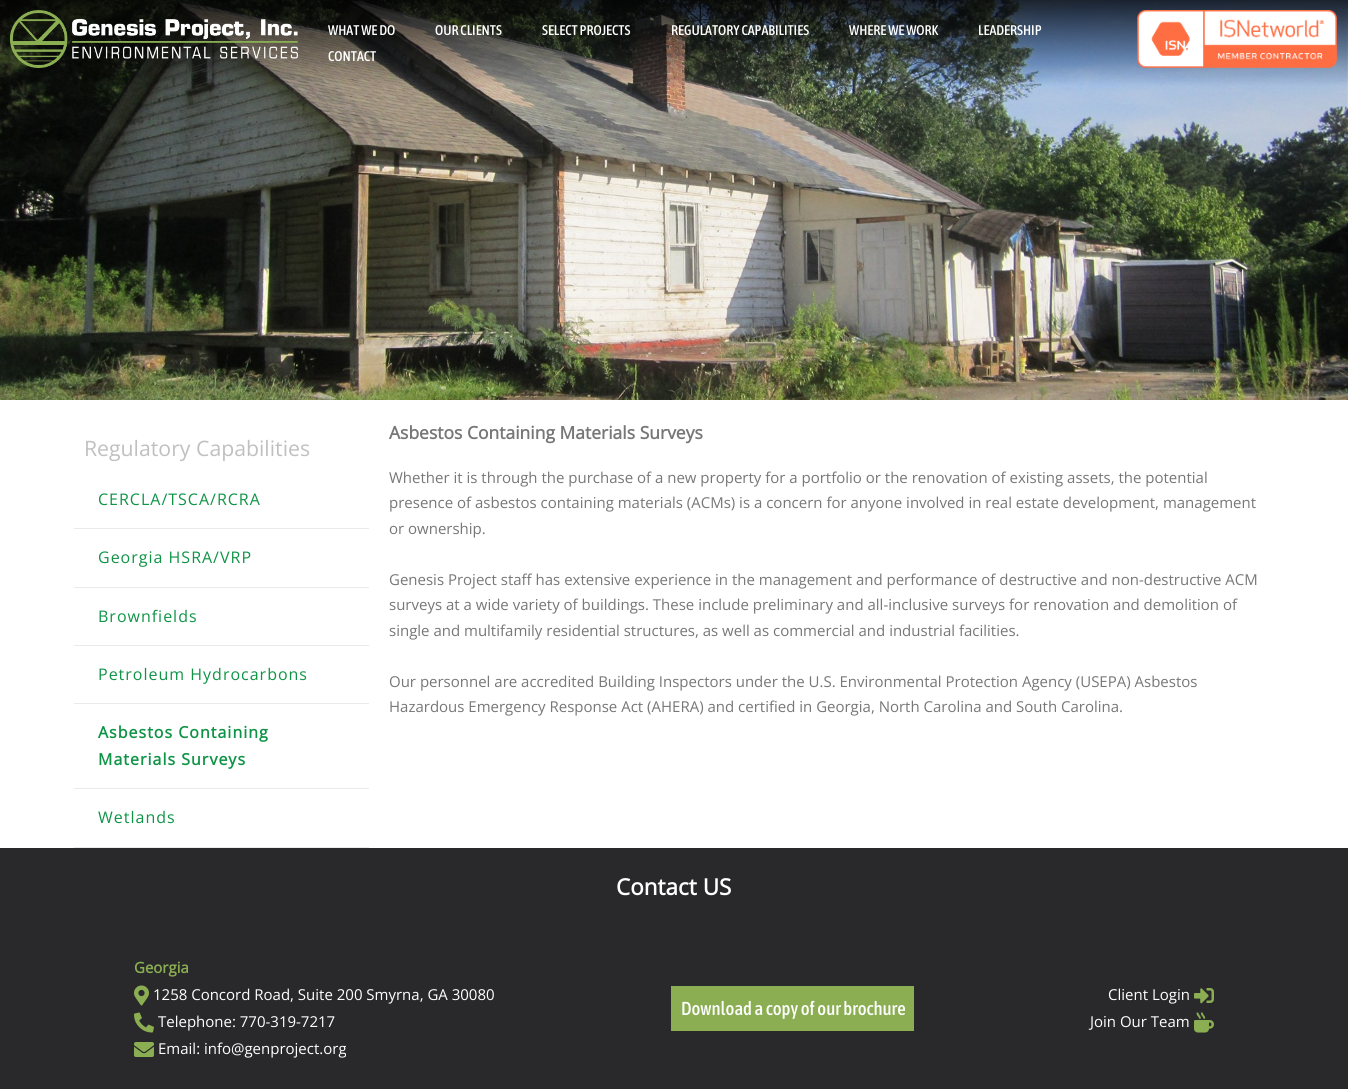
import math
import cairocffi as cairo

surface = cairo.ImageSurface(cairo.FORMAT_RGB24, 1348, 1089)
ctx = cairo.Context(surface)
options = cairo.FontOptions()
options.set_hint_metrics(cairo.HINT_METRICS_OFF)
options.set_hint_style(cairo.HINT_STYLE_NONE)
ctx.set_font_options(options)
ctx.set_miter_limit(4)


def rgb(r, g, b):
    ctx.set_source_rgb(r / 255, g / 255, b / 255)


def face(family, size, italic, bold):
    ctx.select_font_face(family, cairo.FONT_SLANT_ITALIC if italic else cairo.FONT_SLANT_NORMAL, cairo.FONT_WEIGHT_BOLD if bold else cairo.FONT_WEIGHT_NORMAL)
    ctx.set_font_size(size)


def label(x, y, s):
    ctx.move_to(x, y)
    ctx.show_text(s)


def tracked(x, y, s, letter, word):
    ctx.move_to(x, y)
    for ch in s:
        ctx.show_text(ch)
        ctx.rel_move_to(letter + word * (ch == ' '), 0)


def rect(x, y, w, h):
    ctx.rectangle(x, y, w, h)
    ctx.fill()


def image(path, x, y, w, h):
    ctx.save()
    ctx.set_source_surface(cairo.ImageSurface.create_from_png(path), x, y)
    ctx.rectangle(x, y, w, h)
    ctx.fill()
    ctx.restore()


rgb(255, 255, 255)
ctx.paint()
image('image0.png', 0, 0, 1348, 400)
image('image1.png', 10, 10, 288, 58)
face('Asap Condensed Medium', 14, 0, 0)
rgb(255, 255, 255)
label(328, 35, 'WHAT WE DO')
label(435, 35, 'OUR CLIENTS')
label(542, 35, 'SELECT PROJECTS')
label(671, 35, 'REGULATORY CAPABILITIES')
label(849, 35, 'WHERE WE WORK')
label(978, 35, 'LEADERSHIP')
label(328, 61, 'CONTACT')
image('image2.png', 1137, 10, 200, 58)
face('Open Sans', 21.25, 0, 0)
rgb(192, 192, 192)
label(84, 456, 'Regulatory Capabilities')
rgb(234, 234, 234)
rect(74, 528, 295, 1)
face('Open Sans', 16, 0, 0)
rgb(15, 148, 71)
tracked(98, 505, 'CERCLA/TSCA/RCRA', 1, 0)
rgb(234, 234, 234)
rect(74, 587, 295, 1)
rgb(15, 148, 71)
tracked(98, 563, 'Georgia HSRA/VRP', 1, 0)
rgb(234, 234, 234)
rect(74, 645, 295, 1)
rgb(15, 148, 71)
tracked(98, 622, 'Brownfields', 1, 0)
rgb(234, 234, 234)
rect(74, 703, 295, 1)
rgb(15, 148, 71)
tracked(98, 680, 'Petroleum Hydrocarbons', 1, 0)
rgb(234, 234, 234)
rect(74, 788, 295, 1)
face('Open Sans', 16, 0, 1)
rgb(15, 148, 71)
tracked(98, 738, 'Asbestos Containing', 1, 0)
tracked(98, 765, 'Materials Surveys', 1, 0)
rgb(234, 234, 234)
rect(74, 847, 295, 1)
face('Open Sans', 16, 0, 0)
rgb(15, 148, 71)
tracked(98, 823, 'Wetlands', 1, 0)
face('Open Sans', 17.5, 0, 1)
rgb(119, 119, 119)
label(389, 439, 'Asbestos Containing Materials Surveys')
face('Open Sans', 15, 0, 0)
label(389, 483, 'Whether it is through the purchase of a new property for a portfolio or the renovation of existing assets, the potential')
label(389, 508, 'presence of asbestos containing materials (ACMs) is a concern for anyone involved in real estate development, management')
label(389, 534, 'or ownership.')
label(389, 585, 'Genesis Project staff has extensive experience in the management and performance of destructive and non-destructive ACM')
label(389, 610, 'surveys at a wide variety of buildings. These include preliminary and all-inclusive surveys for renovation and demolition of')
label(389, 636, 'single and multifamily residential structures, as well as commercial and industrial facilities.')
label(389, 687, 'Our personnel are accredited Building Inspectors under the U.S. Environmental Protection Agency (USEPA) Asbestos')
label(389, 712, 'Hazardous Emergency Response Act (AHERA) and certified in Georgia, North Carolina and South Carolina.')
rgb(41, 41, 43)
rect(0, 848, 1348, 241)
face('Open Sans', 22.5, 0, 1)
rgb(255, 255, 255)
label(616, 895, 'Contact US')
face('Open Sans', 15, 0, 1)
rgb(139, 174, 83)
label(134, 973, 'Georgia')
image('image3.png', 134, 985, 15, 21)
face('Open Sans', 15, 0, 0)
rgb(255, 255, 255)
label(153, 1000, '1258 Concord Road, Suite 200 Smyrna, GA 30080')
image('image4.png', 134, 1012, 20, 21)
label(158, 1027, 'Telephone: 770-319-7217')
image('image5.png', 134, 1042, 20, 15)
label(158, 1054, 'Email: info@genproject.org')
rgb(139, 174, 83)
rect(671, 986, 243, 45)
face('Asap Condensed Medium', 18.75, 0, 0)
rgb(255, 255, 255)
label(681, 1015, 'Download a copy of our brochure')
face('Open Sans', 15, 0, 0)
label(1108, 1000, 'Client Login')
image('image6.png', 1194, 988, 20, 16)
label(1090, 1027, 'Join Our Team')
image('image7.png', 1194, 1012, 20, 21)
surface.write_to_png('render.png')
